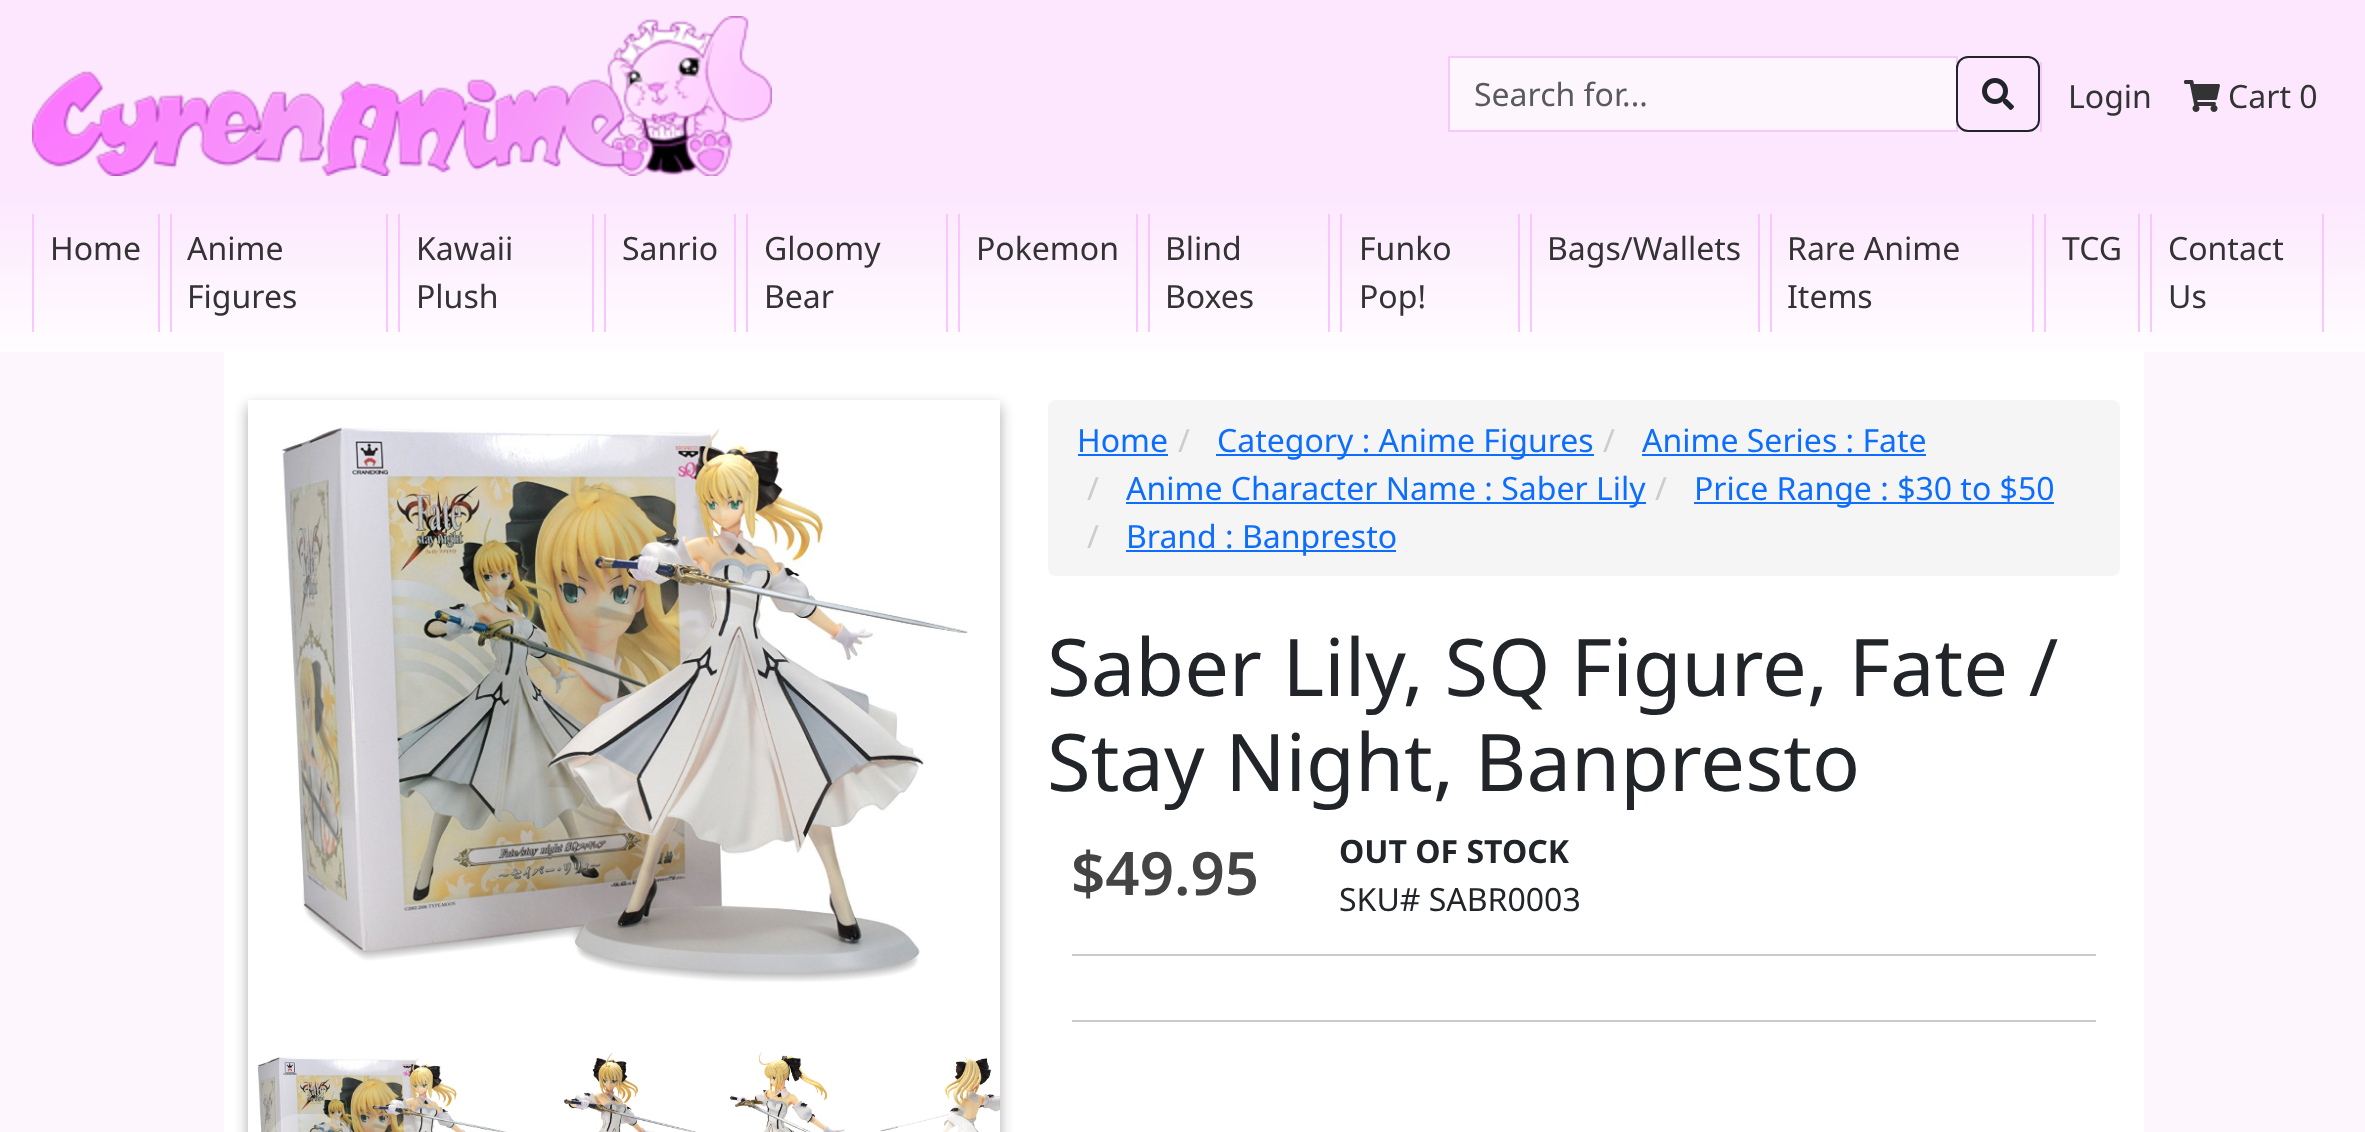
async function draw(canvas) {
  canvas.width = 2365
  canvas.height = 1132
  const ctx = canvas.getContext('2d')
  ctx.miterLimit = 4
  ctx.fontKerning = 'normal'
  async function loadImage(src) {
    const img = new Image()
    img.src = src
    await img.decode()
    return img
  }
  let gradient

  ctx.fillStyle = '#fdf7fd'
  ctx.fillRect(0, 0, 2365, 1132)
  ctx.fillStyle = '#fce7fe'
  ctx.fillRect(0, 0, 2365, 192)
  ctx.drawImage(await loadImage('image0.png'), 32, 16, 740, 160)
  ctx.fillStyle = '#f8c7fd'
  ctx.fillRect(2040, 62, 2, 70)
  ctx.fillStyle = '#fdf7fd'
  ctx.beginPath()
  ctx.rect(1449, 57, 508, 74)
  ctx.fill()
  ctx.strokeStyle = '#f8c7fd'
  ctx.lineWidth = 2
  ctx.stroke()
  ctx.font = '32px Noto Sans'
  ctx.fillStyle = '#585a5e'
  ctx.fillText('Search for...', 1474, 106)
  ctx.beginPath()
  ctx.roundRect(1957, 57, 82, 74, 11)
  ctx.strokeStyle = '#212529'
  ctx.stroke()
  ctx.drawImage(await loadImage('image1.png'), 1982, 78, 32, 32)
  ctx.fillStyle = '#333'
  ctx.fillText('Login', 2068, 108)
  ctx.drawImage(await loadImage('image2.png'), 2184, 80, 36, 32)
  ctx.fillText('Cart 0', 2228, 108)
  gradient = ctx.createLinearGradient(1183, 192, 1183, 352)
  gradient.addColorStop(0, '#fce7fe')
  gradient.addColorStop(1, '#fffdff')
  ctx.fillStyle = gradient
  ctx.fillRect(0, 192, 2365, 160)
  ctx.fillStyle = '#f8c7fd'
  ctx.fillRect(158, 214, 2, 118)
  ctx.fillRect(32, 214, 2, 118)
  ctx.fillStyle = '#333'
  ctx.fillText('Home', 50, 260)
  ctx.fillStyle = '#f8c7fd'
  ctx.fillRect(386, 214, 2, 118)
  ctx.fillRect(170, 214, 2, 118)
  ctx.fillStyle = '#333'
  ctx.fillText('Anime', 187, 260)
  ctx.fillText('Figures', 187, 308)
  ctx.fillStyle = '#f8c7fd'
  ctx.fillRect(592, 214, 2, 118)
  ctx.fillRect(398, 214, 2, 118)
  ctx.fillStyle = '#333'
  ctx.fillText('Kawaii', 416, 260)
  ctx.fillText('Plush', 416, 308)
  ctx.fillStyle = '#f8c7fd'
  ctx.fillRect(734, 214, 2, 118)
  ctx.fillRect(604, 214, 2, 118)
  ctx.fillStyle = '#333'
  ctx.fillText('Sanrio', 622, 260)
  ctx.fillStyle = '#f8c7fd'
  ctx.fillRect(946, 214, 2, 118)
  ctx.fillRect(746, 214, 2, 118)
  ctx.fillStyle = '#333'
  ctx.fillText('Gloomy', 764, 260)
  ctx.fillText('Bear', 764, 308)
  ctx.fillStyle = '#f8c7fd'
  ctx.fillRect(1136, 214, 2, 118)
  ctx.fillRect(958, 214, 2, 118)
  ctx.fillStyle = '#333'
  ctx.fillText('Pokemon', 976, 260)
  ctx.fillStyle = '#f8c7fd'
  ctx.fillRect(1328, 214, 2, 118)
  ctx.fillRect(1148, 214, 2, 118)
  ctx.fillStyle = '#333'
  ctx.fillText('Blind', 1165, 260)
  ctx.fillText('Boxes', 1165, 308)
  ctx.fillStyle = '#f8c7fd'
  ctx.fillRect(1518, 214, 2, 118)
  ctx.fillRect(1340, 214, 2, 118)
  ctx.fillStyle = '#333'
  ctx.fillText('Funko', 1359, 260)
  ctx.fillText('Pop!', 1359, 308)
  ctx.fillStyle = '#f8c7fd'
  ctx.fillRect(1758, 214, 2, 118)
  ctx.fillRect(1530, 214, 2, 118)
  ctx.fillStyle = '#333'
  ctx.fillText('Bags/Wallets', 1547, 260)
  ctx.fillStyle = '#f8c7fd'
  ctx.fillRect(2032, 214, 2, 118)
  ctx.fillRect(1770, 214, 2, 118)
  ctx.fillStyle = '#333'
  ctx.fillText('Rare Anime', 1787, 260)
  ctx.fillText('Items', 1787, 308)
  ctx.fillStyle = '#f8c7fd'
  ctx.fillRect(2138, 214, 2, 118)
  ctx.fillRect(2044, 214, 2, 118)
  ctx.fillStyle = '#333'
  ctx.fillText('TCG', 2062, 260)
  ctx.fillStyle = '#f8c7fd'
  ctx.fillRect(2322, 214, 2, 118)
  ctx.fillRect(2150, 214, 2, 118)
  ctx.fillStyle = '#333'
  ctx.fillText('Contact', 2168, 260)
  ctx.fillText('Us', 2168, 308)
  ctx.fillStyle = '#fff'
  ctx.fillRect(224, 352, 1920, 780)
  ctx.save()
  ctx.beginPath()
  ctx.moveTo(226, 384)
  ctx.lineTo(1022, 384)
  ctx.lineTo(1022, 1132)
  ctx.lineTo(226, 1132)
  ctx.closePath()
  ctx.moveTo(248, 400)
  ctx.lineTo(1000, 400)
  ctx.lineTo(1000, 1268)
  ctx.lineTo(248, 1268)
  ctx.closePath()
  ctx.clip('evenodd')
  ctx.fillStyle = '#a8a8a8'
  ctx.filter = 'blur(7px)'
  ctx.beginPath()
  ctx.rect(248, 406, 752, 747)
  ctx.fill()
  ctx.filter = 'none'
  ctx.restore()
  ctx.drawImage(await loadImage('image3.png'), 281, 427, 687, 555)
  ctx.drawImage(await loadImage('image4.png'), 257, 1057, 250, 75)
  ctx.drawImage(await loadImage('image5.png'), 563, 1053, 133, 79)
  ctx.drawImage(await loadImage('image6.png'), 730, 1051, 115, 81)
  ctx.drawImage(await loadImage('image7.png'), 880, 1057, 120, 75)
  ctx.fillStyle = '#ffffff38'
  ctx.beginPath()
  ctx.roundRect(268, 1114, 88, 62, 44)
  ctx.fill()
  ctx.fillStyle = '#ffffffbf'
  ctx.beginPath()
  ctx.roundRect(892, 1114, 88, 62, 44)
  ctx.fill()
  ctx.fillStyle = '#f5f5f5'
  ctx.beginPath()
  ctx.roundRect(1048, 400, 1072, 176, 8)
  ctx.fill()
  ctx.fillStyle = '#0d6efd'
  ctx.fillText('Home', 1077, 452)
  ctx.fillRect(1078, 454, 90, 2)
  ctx.fillStyle = '#ccc'
  ctx.fillText('/', 1178, 452)
  ctx.fillStyle = '#0d6efd'
  ctx.fillRect(1216, 454, 378, 2)
  ctx.fillText('Category : Anime Figures', 1217, 452)
  ctx.fillStyle = '#ccc'
  ctx.fillText('/', 1603, 452)
  ctx.fillStyle = '#0d6efd'
  ctx.fillText('Anime Series : Fate', 1642, 452)
  ctx.fillRect(1642, 454, 284, 2)
  ctx.fillStyle = '#ccc'
  ctx.fillText('/', 1087, 500)
  ctx.fillStyle = '#0d6efd'
  ctx.fillRect(1126, 502, 520, 2)
  ctx.fillText('Anime Character Name : Saber Lily', 1126, 500)
  ctx.fillStyle = '#ccc'
  ctx.fillText('/', 1655, 500)
  ctx.fillStyle = '#0d6efd'
  ctx.fillRect(1694, 502, 360, 2)
  ctx.fillText('Price Range : $30 to $50', 1694, 500)
  ctx.fillStyle = '#ccc'
  ctx.fillText('/', 1087, 548)
  ctx.fillStyle = '#0d6efd'
  ctx.fillRect(1126, 550, 270, 2)
  ctx.fillText('Brand : Banpresto', 1126, 548)
  ctx.font = '79.5px Noto Sans'
  ctx.fillStyle = '#212529'
  ctx.fillText('Saber Lily, SQ Figure, Fate /', 1047, 696)
  ctx.fillText('Stay Night, Banpresto', 1047, 791)
  ctx.font = '600 60px Noto Sans'
  ctx.fillStyle = '#444'
  ctx.fillText('$49.95', 1071, 895)
  ctx.font = 'bold 32px Noto Sans'
  ctx.fillStyle = '#212529'
  ctx.fillText('OUT OF STOCK', 1339, 863)
  ctx.font = '32px Noto Sans'
  ctx.fillText('SKU# SABR0003', 1339, 911)
  ctx.fillStyle = '#c8c9ca'
  ctx.fillRect(1072, 954, 1024, 2)
  ctx.fillRect(1072, 1020, 1024, 2)
}

draw(document.querySelector('canvas'))
